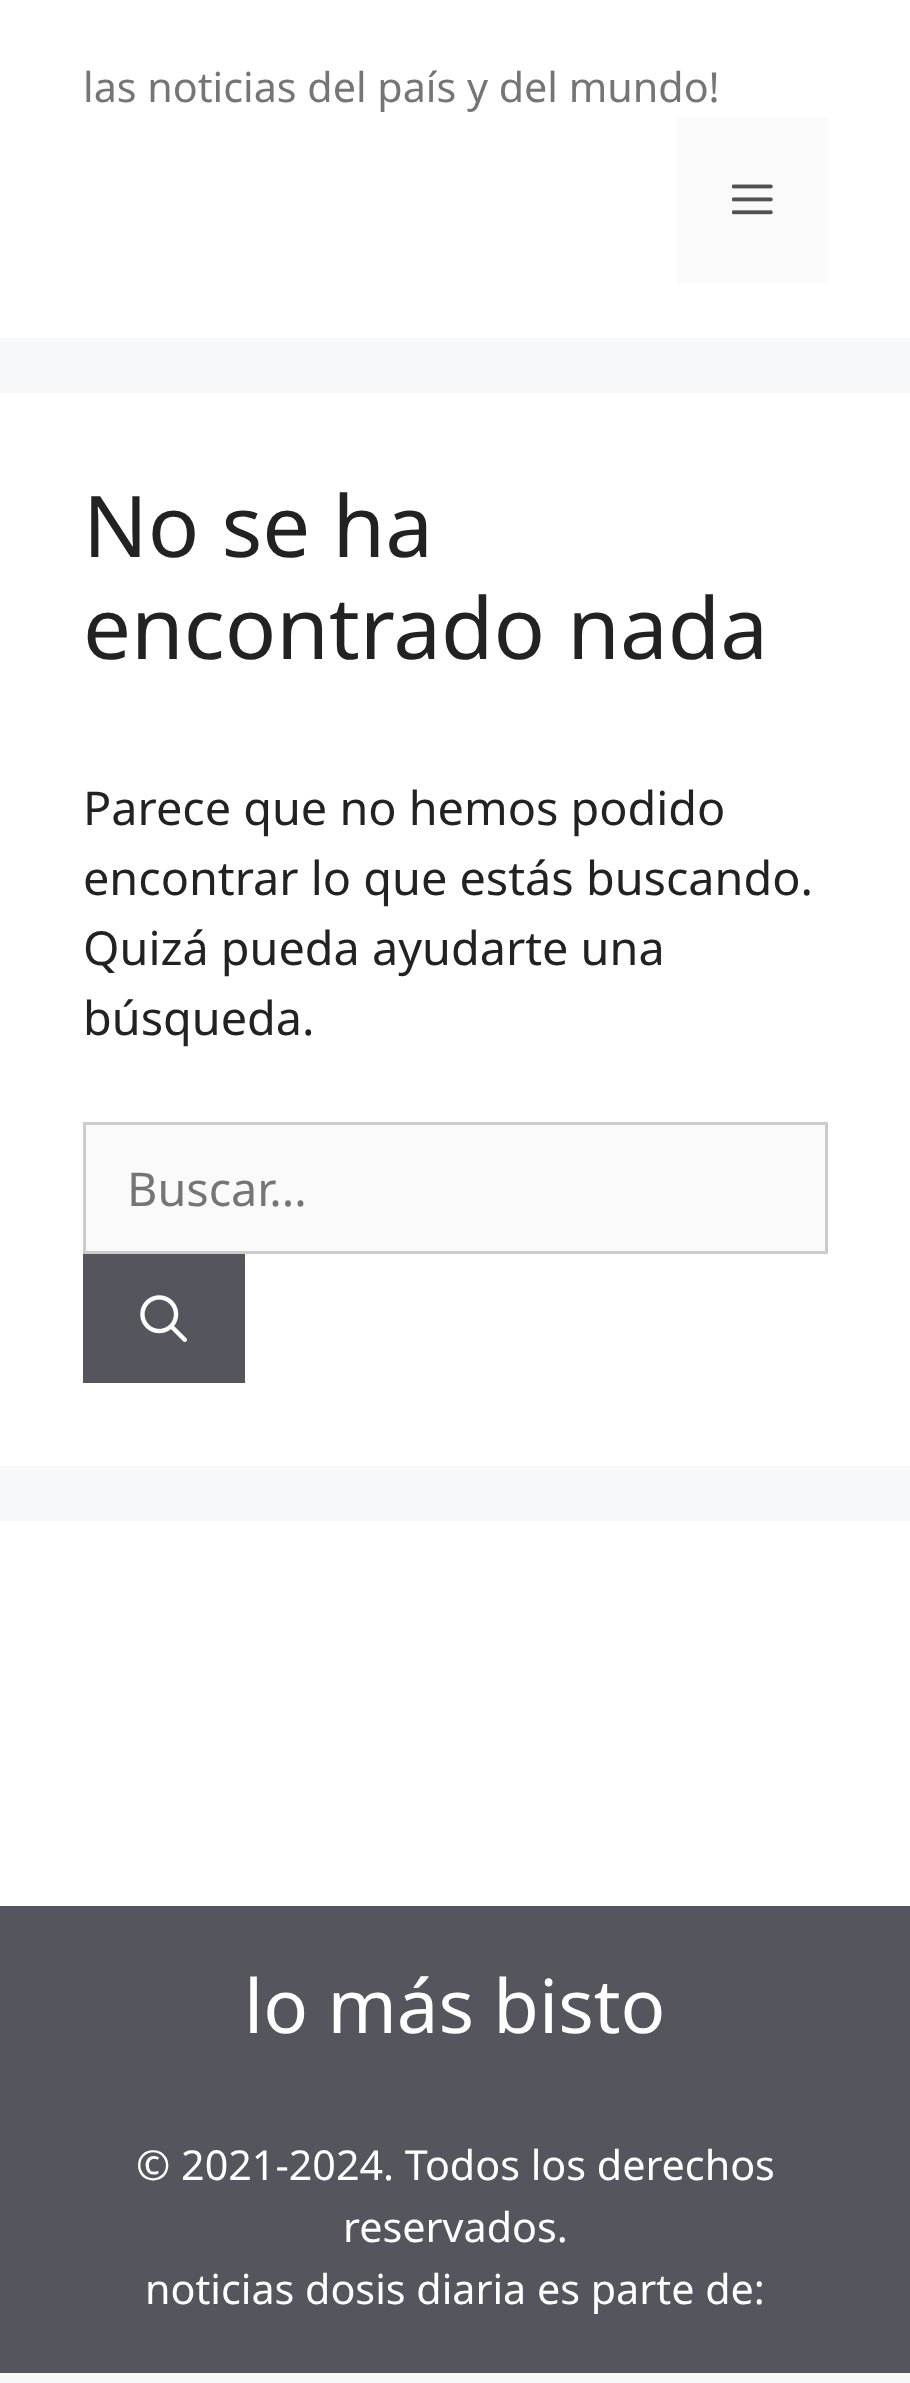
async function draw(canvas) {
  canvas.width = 910
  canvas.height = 2383
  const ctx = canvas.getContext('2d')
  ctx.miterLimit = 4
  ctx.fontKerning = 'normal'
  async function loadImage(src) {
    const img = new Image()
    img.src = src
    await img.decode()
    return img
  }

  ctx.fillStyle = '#f7f8f9'
  ctx.fillRect(0, 0, 910, 2383)
  ctx.fillStyle = '#fff'
  ctx.fillRect(0, 0, 910, 338)
  ctx.font = '41.25px Noto Sans'
  ctx.fillStyle = '#757575'
  ctx.fillText('las noticias del país y del mundo!', 83, 102)
  ctx.fillStyle = '#fafafa'
  ctx.fillRect(677, 118, 151, 165)
  ctx.drawImage(await loadImage('image0.png'), 732, 184, 41, 31)
  ctx.fillStyle = '#fff'
  ctx.fillRect(0, 393, 910, 1073)
  ctx.font = '85.25px Noto Sans'
  ctx.fillStyle = '#222'
  ctx.fillText('No se ha', 83, 557)
  ctx.fillText('encontrado nada', 83, 659)
  ctx.font = '46.75px Noto Sans'
  ctx.fillText('Parece que no hemos podido', 83, 825)
  ctx.fillText('encontrar lo que estás buscando.', 83, 895)
  ctx.fillText('Quizá pueda ayudarte una', 83, 965)
  ctx.fillText('búsqueda.', 83, 1035)
  ctx.fillStyle = '#fafafa'
  ctx.beginPath()
  ctx.rect(84.5, 1123.5, 742, 129)
  ctx.fill()
  ctx.strokeStyle = '#ccc'
  ctx.lineWidth = 3
  ctx.stroke()
  ctx.fillStyle = '#757575'
  ctx.fillText('Buscar...', 127, 1206)
  ctx.fillStyle = '#55555e'
  ctx.fillRect(83, 1254, 162, 129)
  ctx.drawImage(await loadImage('image1.png'), 140, 1295, 47, 47)
  ctx.fillStyle = '#fff'
  ctx.fillRect(0, 1521, 910, 385)
  ctx.fillStyle = '#55555e'
  ctx.fillRect(0, 1906, 910, 467)
  ctx.font = '74.25px Noto Sans'
  ctx.fillStyle = '#fff'
  ctx.fillText('lo más bisto', 244, 2033)
  ctx.font = '41.25px Noto Sans'
  ctx.fillText('© 2021-2024. Todos los derechos', 136, 2180)
  ctx.fillText('reservados.', 343, 2242)
  ctx.fillText('noticias dosis diaria es parte de:', 145, 2304)
}

draw(document.querySelector('canvas'))
